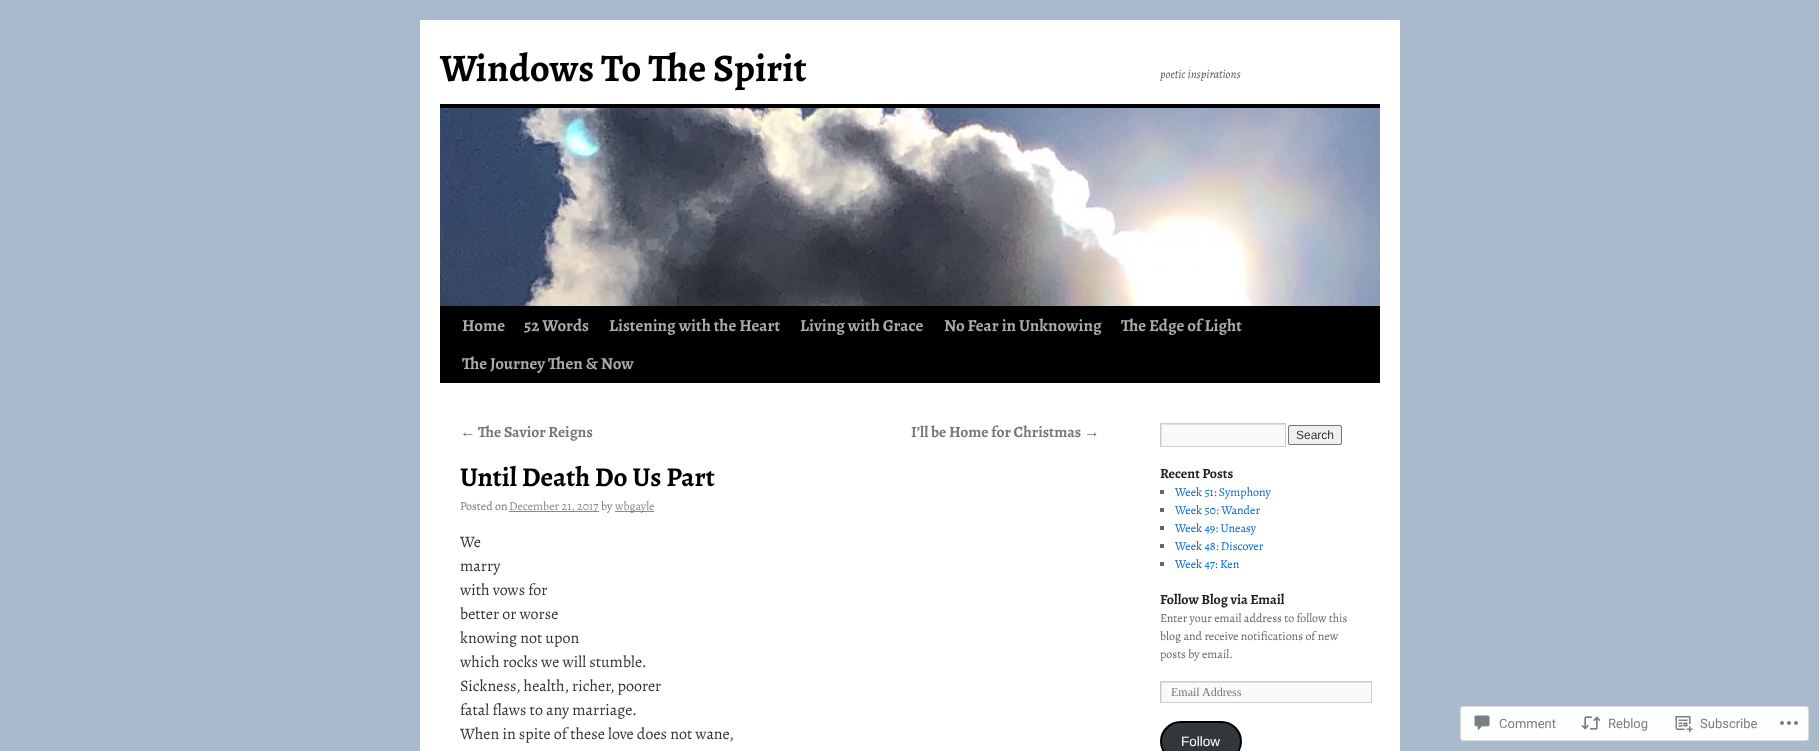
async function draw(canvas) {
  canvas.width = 1819
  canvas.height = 751
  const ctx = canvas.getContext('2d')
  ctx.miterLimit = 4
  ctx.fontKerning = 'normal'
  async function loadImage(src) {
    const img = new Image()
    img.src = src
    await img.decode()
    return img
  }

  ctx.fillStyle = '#a8bacb'
  ctx.fillRect(0, 0, 1819, 751)
  ctx.fillStyle = '#fff'
  ctx.fillRect(420, 20, 980, 731)
  ctx.font = 'bold 39px Alegreya'
  ctx.fillStyle = '#000'
  ctx.fillText('Windows To The Spirit', 440, 81)
  ctx.font = 'italic 12px Alegreya'
  ctx.fillStyle = '#595959'
  ctx.fillText('poetic inspirations', 1160, 78)
  ctx.fillStyle = '#000'
  ctx.fillRect(440, 104, 940, 4)
  ctx.fillRect(440, 306, 940, 77)
  ctx.drawImage(await loadImage('image0.png'), 440, 108, 940, 198)
  ctx.font = 'bold 16.9px Alegreya'
  ctx.fillStyle = '#aaa'
  ctx.fillText('Home', 462, 331)
  ctx.fillText('52 Words', 524, 331)
  ctx.fillText('Listening with the Heart', 609, 331)
  ctx.fillText('Living with Grace', 800, 331)
  ctx.fillText('No Fear in Unknowing', 944, 331)
  ctx.fillText('The Edge of Light', 1121, 331)
  ctx.fillText('The Journey Then & Now', 462, 369)
  ctx.font = 'bold 15.6px Liberation Serif'
  ctx.fillStyle = '#777'
  ctx.fillText('←', 460, 437)
  ctx.font = 'bold 15.6px Alegreya'
  ctx.fillText('The Savior Reigns', 478, 437)
  ctx.fillText('I’ll be Home for Christmas', 911, 437)
  ctx.font = 'bold 15.6px Liberation Serif'
  ctx.fillText('→', 1084, 437)
  ctx.font = 'bold 27.25px Alegreya'
  ctx.fillStyle = '#000'
  ctx.fillText('Until Death Do Us Part', 460, 486)
  ctx.font = '12px Alegreya'
  ctx.fillStyle = '#777'
  ctx.fillText('Posted on', 460, 510)
  ctx.fillStyle = '#888'
  ctx.fillRect(509, 511, 90, 1)
  ctx.fillText('December 21, 2017', 509, 510)
  ctx.fillStyle = '#777'
  ctx.fillText('by', 601, 510)
  ctx.fillStyle = '#888'
  ctx.fillRect(615, 511, 39, 1)
  ctx.fillText('wbgayle', 615, 510)
  ctx.font = '16px Alegreya'
  ctx.fillStyle = '#333'
  ctx.fillText('We', 460, 547)
  ctx.fillText('marry', 460, 571)
  ctx.fillText('with vows for', 460, 595)
  ctx.fillText('better or worse', 460, 619)
  ctx.fillText('knowing not upon', 460, 643)
  ctx.fillText('which rocks we will stumble.', 460, 667)
  ctx.fillText('Sickness, health, richer, poorer', 460, 691)
  ctx.fillText('fatal flaws to any marriage.', 460, 715)
  ctx.fillText('When in spite of these love does not wane,', 460, 739)
  ctx.fillStyle = '#f9f9f9'
  ctx.fillRect(1162, 425, 123, 21)
  ctx.save()
  ctx.beginPath()
  ctx.rect(1161, 424, 124, 22)
  ctx.clip()
  ctx.fillStyle = '#e0e0e0'
  ctx.beginPath()
  ctx.moveTo(1062, 325)
  ctx.lineTo(1384, 325)
  ctx.lineTo(1384, 545)
  ctx.lineTo(1062, 545)
  ctx.closePath()
  ctx.moveTo(1162, 425)
  ctx.lineTo(1286, 425)
  ctx.lineTo(1286, 447)
  ctx.lineTo(1162, 447)
  ctx.closePath()
  ctx.fill('evenodd')
  ctx.restore()
  ctx.strokeStyle = '#ccc'
  ctx.strokeRect(1160.5, 423.5, 125, 23)
  ctx.fillStyle = '#efefef'
  ctx.beginPath()
  ctx.roundRect(1288.5, 425.5, 53, 19, 1.5)
  ctx.fill()
  ctx.strokeStyle = '#767676'
  ctx.stroke()
  ctx.font = '12px Liberation Sans'
  ctx.fillStyle = '#333'
  ctx.fillText('Search', 1296, 439)
  ctx.font = 'bold 14px Alegreya'
  ctx.fillStyle = '#222'
  ctx.fillText('Recent Posts', 1160, 478)
  ctx.fillStyle = '#666'
  ctx.fillRect(1160, 490, 4, 4)
  ctx.font = '12px Alegreya'
  ctx.fillStyle = '#06c'
  ctx.fillText('Week 51: Symphony', 1175, 496)
  ctx.fillStyle = '#666'
  ctx.fillRect(1160, 508, 4, 4)
  ctx.fillStyle = '#06c'
  ctx.fillText('Week 50: Wander', 1175, 514)
  ctx.fillStyle = '#666'
  ctx.fillRect(1160, 526, 4, 4)
  ctx.fillStyle = '#06c'
  ctx.fillText('Week 49: Uneasy', 1175, 532)
  ctx.fillStyle = '#666'
  ctx.fillRect(1160, 544, 4, 4)
  ctx.fillStyle = '#06c'
  ctx.fillText('Week 48: Discover', 1175, 550)
  ctx.fillStyle = '#666'
  ctx.fillRect(1160, 562, 4, 4)
  ctx.fillStyle = '#06c'
  ctx.fillText('Week 47: Ken', 1175, 568)
  ctx.font = 'bold 14px Alegreya'
  ctx.fillStyle = '#222'
  ctx.fillText('Follow Blog via Email', 1160, 604)
  ctx.font = '12px Alegreya'
  ctx.fillStyle = '#666'
  ctx.fillText('Enter your email address to follow this', 1160, 622)
  ctx.fillText('blog and receive notifications of new', 1160, 640)
  ctx.fillText('posts by email.', 1160, 658)
  ctx.fillStyle = '#f9f9f9'
  ctx.fillRect(1162, 683, 209, 19)
  ctx.save()
  ctx.beginPath()
  ctx.rect(1161, 682, 210, 20)
  ctx.clip()
  ctx.fillStyle = '#e0e0e0'
  ctx.beginPath()
  ctx.moveTo(1062, 583)
  ctx.lineTo(1470, 583)
  ctx.lineTo(1470, 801)
  ctx.lineTo(1062, 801)
  ctx.closePath()
  ctx.moveTo(1162, 683)
  ctx.lineTo(1372, 683)
  ctx.lineTo(1372, 703)
  ctx.lineTo(1162, 703)
  ctx.closePath()
  ctx.fill('evenodd')
  ctx.restore()
  ctx.strokeStyle = '#ccc'
  ctx.strokeRect(1160.5, 681.5, 211, 21)
  ctx.font = '12px Liberation Serif'
  ctx.fillStyle = '#777'
  ctx.fillText('Email Address', 1171, 696)
  ctx.fillStyle = '#32373c'
  ctx.beginPath()
  ctx.roundRect(1161, 722, 80, 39, 19.5)
  ctx.fill()
  ctx.strokeStyle = '#000'
  ctx.lineWidth = 2
  ctx.stroke()
  ctx.font = '13.5px Liberation Sans'
  ctx.fillStyle = '#fff'
  ctx.fillText('Follow', 1181, 746)
  ctx.fillStyle = '#fdfefe'
  ctx.beginPath()
  ctx.roundRect(1460.5, 706.5, 348, 34, 2.5)
  ctx.fill()
  ctx.strokeStyle = '#dbdbde'
  ctx.lineWidth = 1
  ctx.stroke()
  ctx.drawImage(await loadImage('image1.png'), 1474, 715, 16, 16)
  ctx.font = '13px Roboto'
  ctx.fillStyle = '#797d83'
  ctx.fillText('Comment', 1499, 728)
  ctx.drawImage(await loadImage('image2.png'), 1581, 716, 20, 14)
  ctx.fillText('Reblog', 1608, 728)
  ctx.drawImage(await loadImage('image3.png'), 1675, 716, 18, 17)
  ctx.fillText('Subscribe', 1700, 728)
  ctx.drawImage(await loadImage('image4.png'), 1780, 721, 18, 4)
}

draw(document.querySelector('canvas'))
